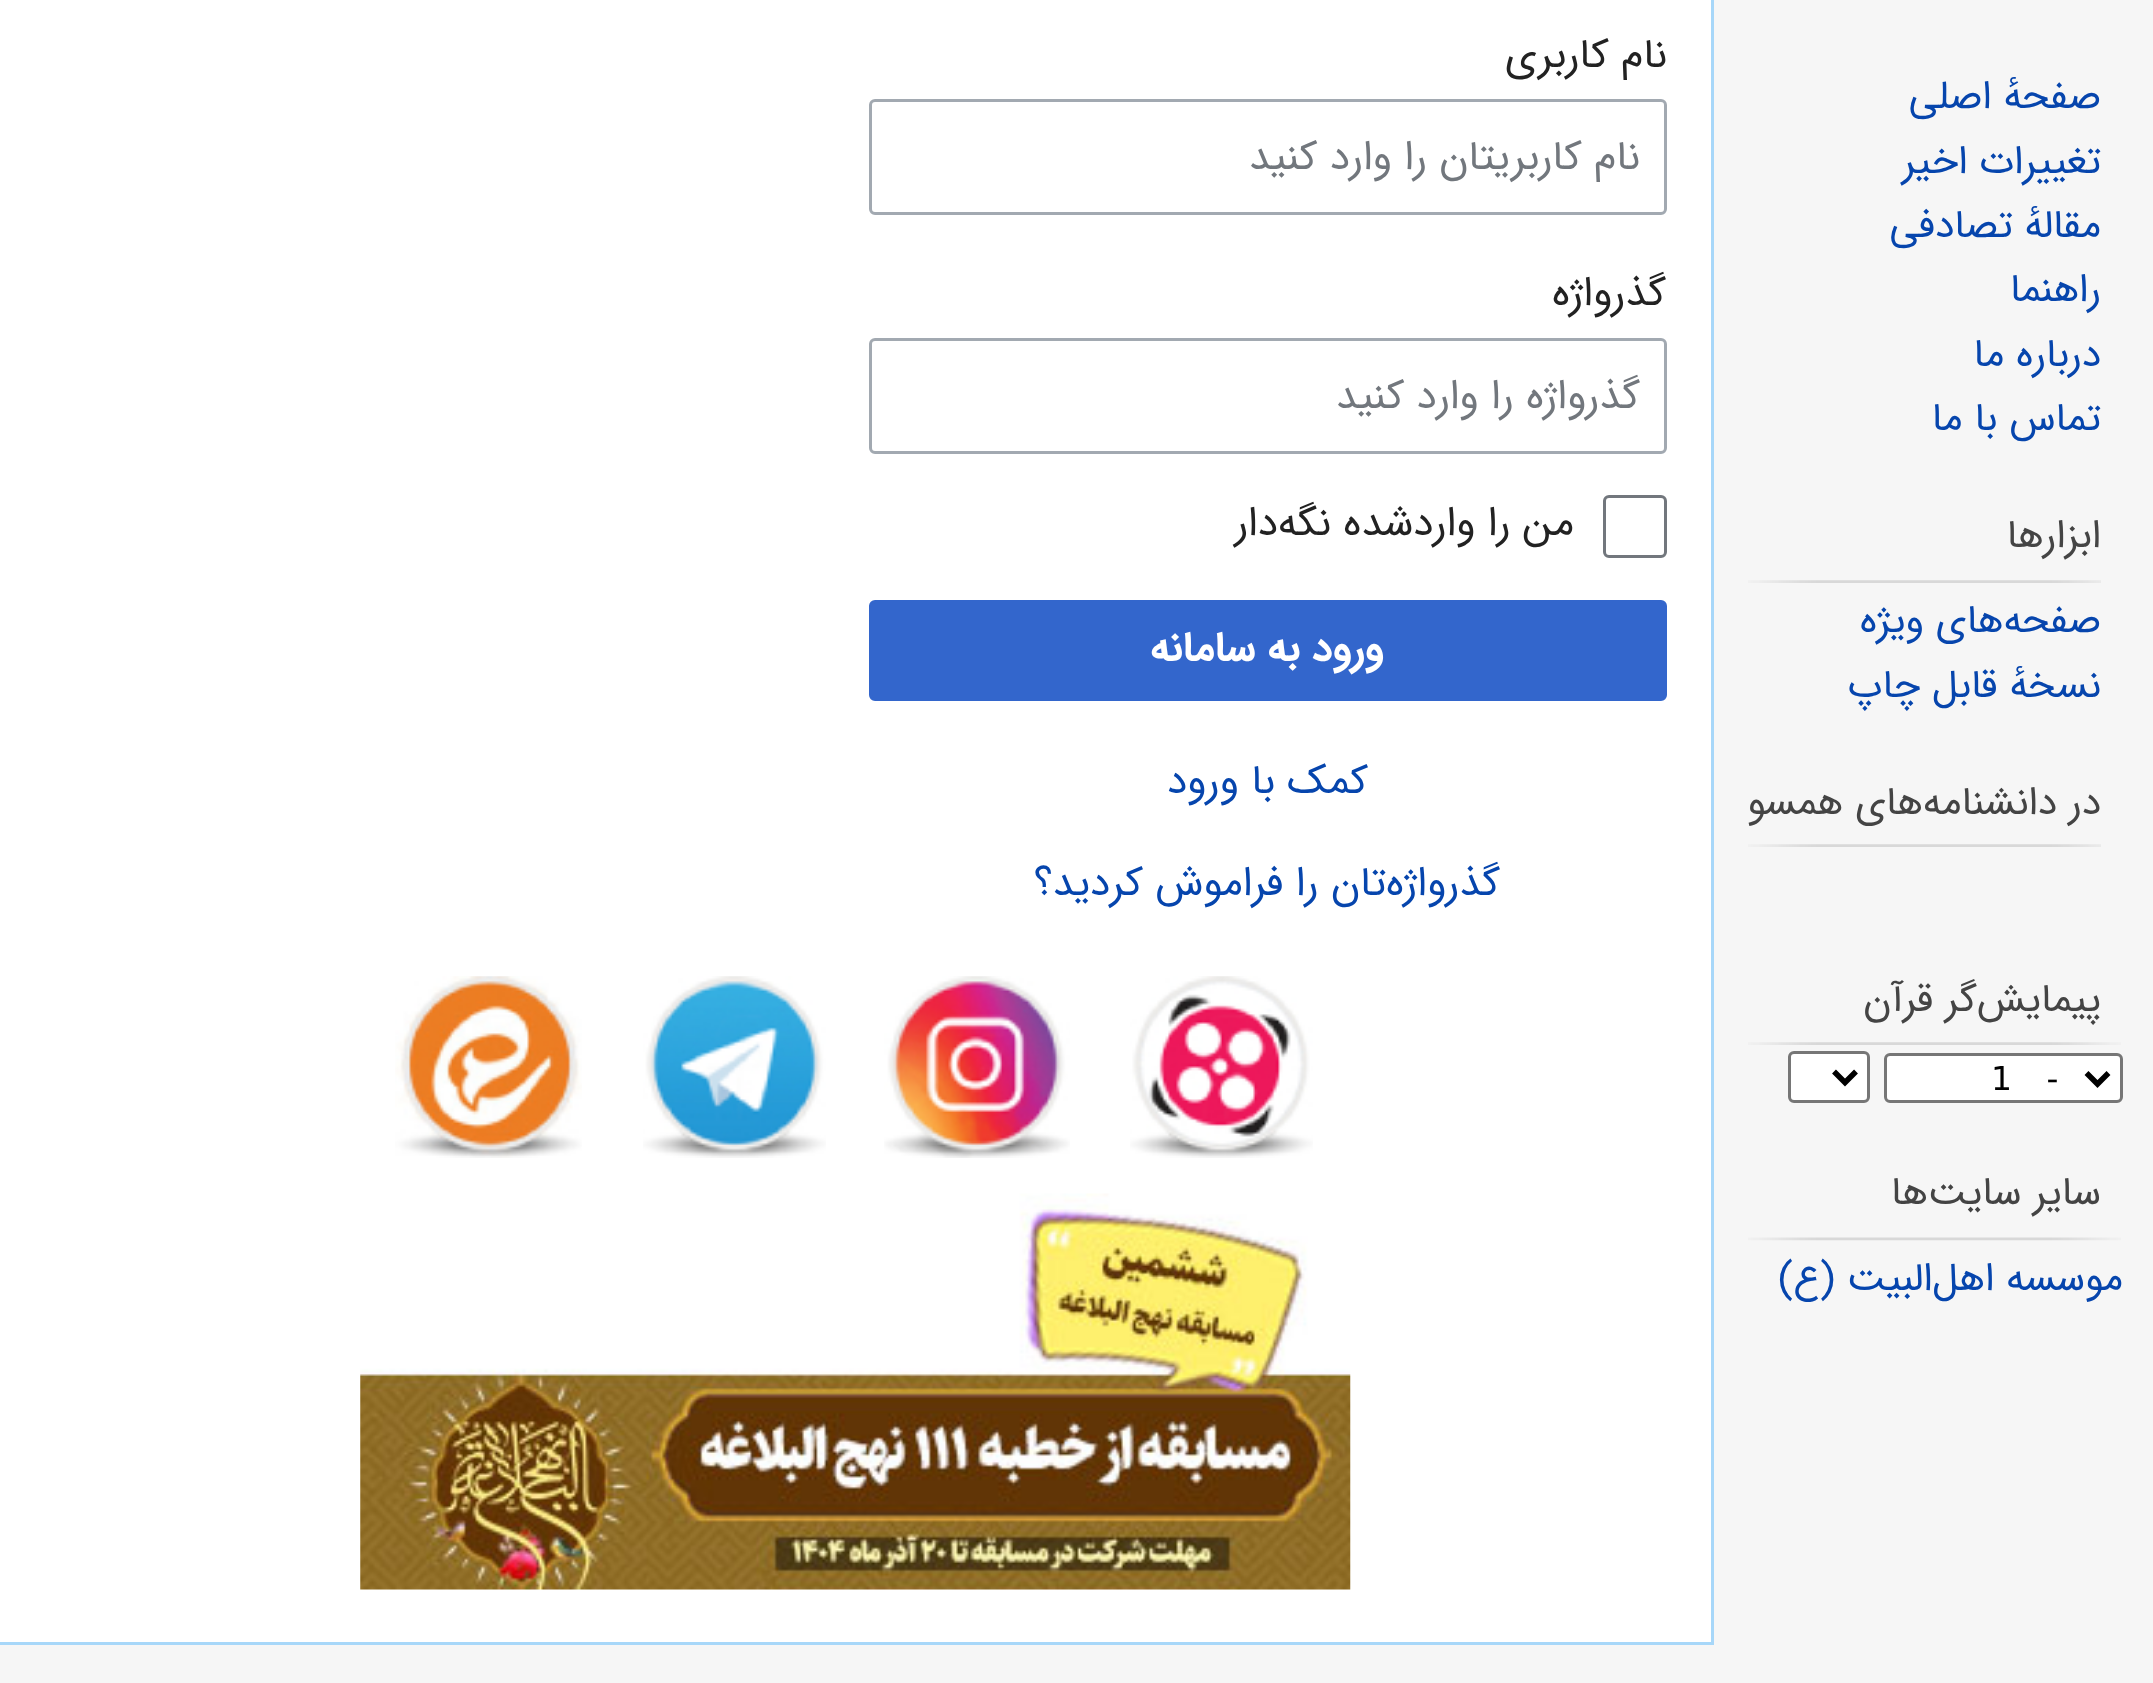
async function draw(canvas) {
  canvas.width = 2153
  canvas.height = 1683
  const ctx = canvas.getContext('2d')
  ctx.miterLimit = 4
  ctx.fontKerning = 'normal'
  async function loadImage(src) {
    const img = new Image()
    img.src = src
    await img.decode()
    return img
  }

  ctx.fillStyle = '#f6f6f6'
  ctx.fillRect(0, 0, 2153, 1683)
  ctx.direction = 'rtl'
  ctx.font = '39.5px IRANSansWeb'
  ctx.fillStyle = '#0645ad'
  ctx.fillText('صفحهٔ اصلی', 2101, 108)
  ctx.fillText('تغییرات اخیر', 2101, 173)
  ctx.fillText('مقالهٔ تصادفی', 2101, 237)
  ctx.fillText('راهنما', 2101, 301)
  ctx.fillText('درباره ما', 2101, 366)
  ctx.fillText('تماس با ما', 2101, 430)
  ctx.fillStyle = '#444'
  ctx.fillText('ابزارها', 2101, 547)
  ctx.drawImage(await loadImage('image0.png'), 1748, 580, 353, 3)
  ctx.fillStyle = '#0645ad'
  ctx.fillText('صفحه‌های ویژه', 2101, 632)
  ctx.fillText('نسخهٔ قابل چاپ', 2101, 697)
  ctx.fillStyle = '#444'
  ctx.fillText('در دانشنامه‌های همسو', 2101, 814)
  ctx.drawImage(await loadImage('image0.png'), 1748, 844, 353, 3)
  ctx.fillText('پیمایش‌گر قرآن', 2101, 1011)
  ctx.drawImage(await loadImage('image1.png'), 1748, 1042, 373, 3)
  ctx.fillStyle = '#fff'
  ctx.beginPath()
  ctx.roundRect(1885.5, 1054.5, 236, 47, 4.5)
  ctx.fill()
  ctx.strokeStyle = '#767676'
  ctx.lineWidth = 3
  ctx.stroke()
  ctx.beginPath()
  ctx.moveTo(2086.5, 1073)
  ctx.lineTo(2097.5, 1084)
  ctx.lineTo(2108.5, 1073)
  ctx.strokeStyle = '#000'
  ctx.lineWidth = 5.5
  ctx.stroke()
  ctx.wordSpacing = '24px'
  ctx.direction = 'ltr'
  ctx.font = '33px DejaVu Sans'
  ctx.fillStyle = '#000'
  ctx.fillText('1 -', 1991, 1090)
  ctx.fillStyle = '#fff'
  ctx.beginPath()
  ctx.roundRect(1789.5, 1052.5, 79, 49, 4.5)
  ctx.fill()
  ctx.strokeStyle = '#767676'
  ctx.lineWidth = 3
  ctx.stroke()
  ctx.beginPath()
  ctx.moveTo(1834, 1071.5)
  ctx.lineTo(1845, 1082.5)
  ctx.lineTo(1856, 1071.5)
  ctx.strokeStyle = '#000'
  ctx.lineWidth = 5.5
  ctx.stroke()
  ctx.wordSpacing = '0px'
  ctx.direction = 'rtl'
  ctx.font = '39.5px IRANSansWeb'
  ctx.fillStyle = '#444'
  ctx.fillText('سایر سایت‌ها', 2101, 1204)
  ctx.drawImage(await loadImage('image2.png'), 1748, 1237, 373, 4)
  ctx.fillStyle = '#0645ad'
  ctx.fillText('موسسه اهل‌البیت (ع)', 2123, 1290)
  ctx.fillStyle = '#fff'
  ctx.fillRect(0, 0, 1711, 1642)
  ctx.fillStyle = '#a7d7f9'
  ctx.fillRect(1711, 0, 3, 1645)
  ctx.fillRect(0, 1642, 1713, 3)
  ctx.font = '41px IRANSansWeb'
  ctx.fillStyle = '#222'
  ctx.fillText('نام کاربری', 1667, 67)
  ctx.beginPath()
  ctx.roundRect(870.5, 100.5, 795, 113, 4.5)
  ctx.strokeStyle = '#a2a9b1'
  ctx.lineWidth = 3
  ctx.stroke()
  ctx.fillStyle = '#72777d'
  ctx.fillText('نام کاربریتان را وارد کنید', 1640, 169)
  ctx.fillStyle = '#222'
  ctx.fillText('گذرواژه', 1666, 305)
  ctx.beginPath()
  ctx.roundRect(870.5, 339.5, 795, 113, 4.5)
  ctx.stroke()
  ctx.fillStyle = '#72777d'
  ctx.fillText('گذرواژه را وارد کنید', 1640, 408)
  ctx.beginPath()
  ctx.roundRect(1604.5, 496.5, 61, 60, 4.5)
  ctx.strokeStyle = '#72777d'
  ctx.stroke()
  ctx.fillStyle = '#222'
  ctx.fillText('من را واردشده نگه‌دار', 1574, 535)
  ctx.fillStyle = '#36c'
  ctx.beginPath()
  ctx.roundRect(870.5, 601.5, 795, 98, 4.5)
  ctx.fill()
  ctx.strokeStyle = '#36c'
  ctx.stroke()
  ctx.font = 'bold 41px IRANSansWeb'
  ctx.fillStyle = '#fff'
  ctx.fillText('ورود به سامانه', 1384, 660)
  ctx.font = '41px IRANSansWeb'
  ctx.fillStyle = '#0645ad'
  ctx.fillText('کمک با ورود', 1368, 793)
  ctx.fillText('گذرواژه‌تان را فراموش کردید؟', 1500, 895)
  ctx.drawImage(await loadImage('image3.png'), 1130, 976, 183, 182)
  ctx.drawImage(await loadImage('image4.png'), 884, 976, 186, 182)
  ctx.drawImage(await loadImage('image5.png'), 643, 976, 183, 182)
  ctx.drawImage(await loadImage('image6.png'), 395, 976, 187, 182)
  ctx.drawImage(await loadImage('image7.png'), 360, 1193, 991, 397)
}

draw(document.querySelector('canvas'))
